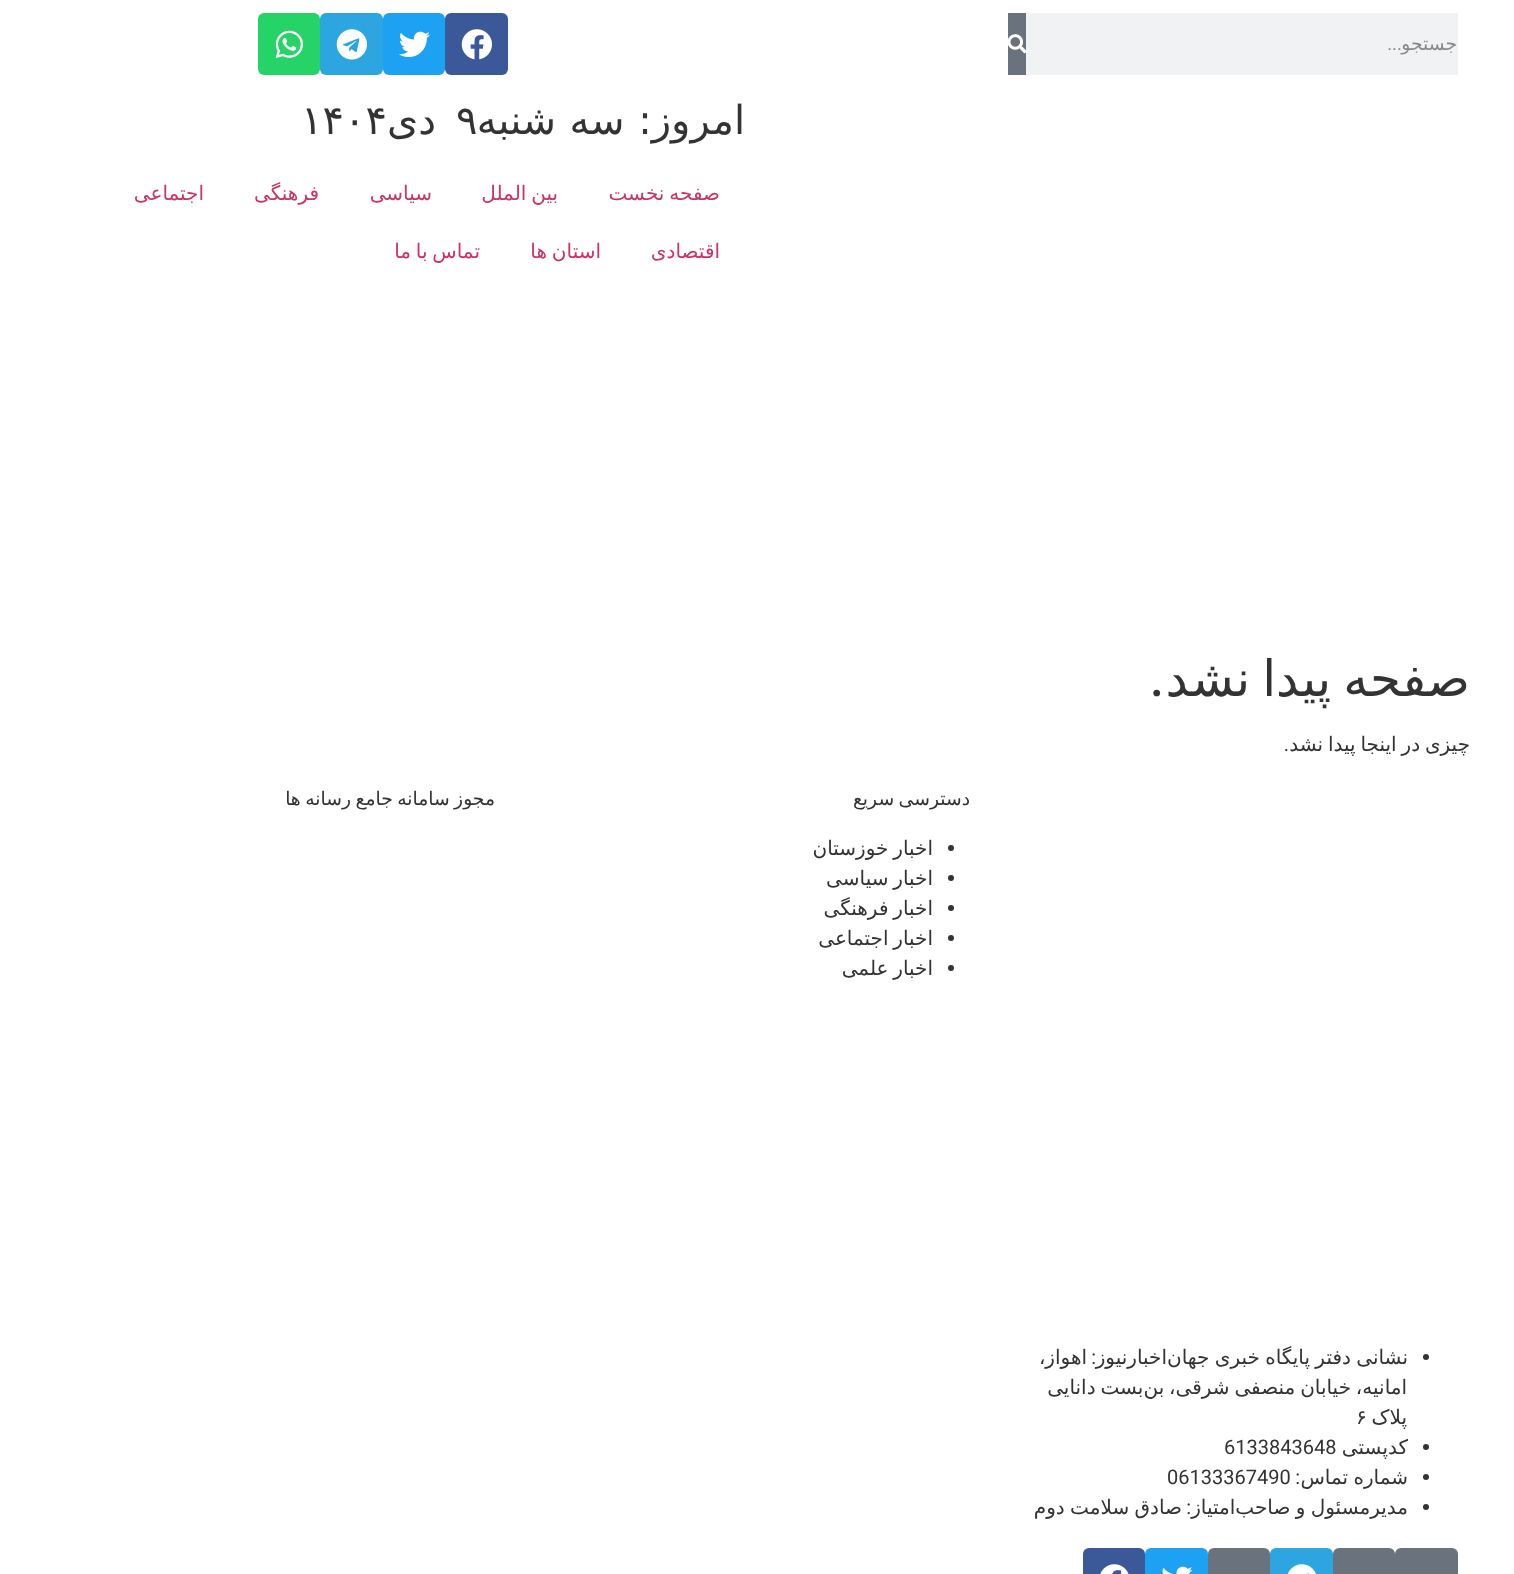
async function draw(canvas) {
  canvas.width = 1514
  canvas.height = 1574
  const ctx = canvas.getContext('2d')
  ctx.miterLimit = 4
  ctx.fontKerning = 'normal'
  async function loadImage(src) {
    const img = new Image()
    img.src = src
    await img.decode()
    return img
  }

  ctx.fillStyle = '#fff'
  ctx.fillRect(0, 0, 1514, 1574)
  ctx.fillStyle = '#f1f2f3'
  ctx.fillRect(1026, 13, 432, 62)
  ctx.direction = 'rtl'
  ctx.font = '18.75px Roboto'
  ctx.fillStyle = '#868a8e'
  ctx.fillText('...', 1402, 50)
  ctx.font = '18.75px DejaVu Sans'
  ctx.fillText('جستجو', 1457, 50)
  ctx.fillStyle = '#69727d'
  ctx.fillRect(1008, 13, 18, 62)
  ctx.drawImage(await loadImage('image0.png'), 1008, 34, 18, 20)
  ctx.fillStyle = '#3b5998'
  ctx.beginPath()
  ctx.roundRect(445, 13, 63, 62, 6)
  ctx.fill()
  ctx.drawImage(await loadImage('image1.png'), 461, 29, 31, 31)
  ctx.fillStyle = '#1da1f2'
  ctx.beginPath()
  ctx.roundRect(383, 13, 62, 62, 6)
  ctx.fill()
  ctx.drawImage(await loadImage('image2.png'), 399, 31, 31, 27)
  ctx.fillStyle = '#2ca5e0'
  ctx.beginPath()
  ctx.roundRect(320, 13, 63, 62, 6)
  ctx.fill()
  ctx.drawImage(await loadImage('image3.png'), 336, 29, 31, 31)
  ctx.fillStyle = '#25d366'
  ctx.beginPath()
  ctx.roundRect(258, 13, 62, 62, 6)
  ctx.fill()
  ctx.drawImage(await loadImage('image4.png'), 275, 30, 28, 28)
  ctx.wordSpacing = '1px'
  ctx.font = '40px DejaVu Sans'
  ctx.fillStyle = '#333'
  ctx.fillText('امروز: سه شنبه', 745, 134)
  ctx.wordSpacing = '0px'
  ctx.direction = 'ltr'
  ctx.fillText('۹', 456, 134)
  ctx.direction = 'rtl'
  ctx.fillText('دی', 436, 134)
  ctx.direction = 'ltr'
  ctx.fillText('۱۴۰۴', 301, 134)
  ctx.wordSpacing = '-1.5px'
  ctx.direction = 'rtl'
  ctx.font = '20px DejaVu Sans'
  ctx.fillStyle = '#c36'
  ctx.fillText('صفحه نخست', 720, 200)
  ctx.fillText('بین الملل', 558, 200)
  ctx.wordSpacing = '0px'
  ctx.fillText('سیاسی', 432, 200)
  ctx.fillText('فرهنگی', 319, 200)
  ctx.fillText('اجتماعی', 204, 200)
  ctx.fillText('اقتصادی', 720, 258)
  ctx.wordSpacing = '-1.5px'
  ctx.fillText('استان ها', 601, 258)
  ctx.fillText('تماس با ما', 480, 258)
  ctx.wordSpacing = '-4px'
  ctx.font = '50px DejaVu Sans'
  ctx.fillStyle = '#333'
  ctx.fillText('صفحه پیدا نشد', 1470, 696)
  ctx.wordSpacing = '0px'
  ctx.font = '500 50px Roboto'
  ctx.fillText('.', 1164, 696)
  ctx.wordSpacing = '-1.5px'
  ctx.font = '20px DejaVu Sans'
  ctx.fillText('چیزی در اینجا پیدا نشد', 1470, 751)
  ctx.wordSpacing = '0px'
  ctx.font = '20px Roboto'
  ctx.fillText('.', 1289, 751)
  ctx.wordSpacing = '-1.5px'
  ctx.font = '18.75px DejaVu Sans'
  ctx.fillText('دسترسی سریع', 970, 805)
  ctx.beginPath()
  ctx.arc(951, 848, 3, 0, 2 * Math.PI)
  ctx.fill()
  ctx.font = '20px DejaVu Sans'
  ctx.fillText('اخبار خوزستان', 933, 855)
  ctx.beginPath()
  ctx.arc(951, 878, 3, 0, 2 * Math.PI)
  ctx.fill()
  ctx.fillText('اخبار سیاسی', 933, 885)
  ctx.beginPath()
  ctx.arc(951, 908, 3, 0, 2 * Math.PI)
  ctx.fill()
  ctx.fillText('اخبار فرهنگی', 933, 915)
  ctx.beginPath()
  ctx.arc(951, 938, 3, 0, 2 * Math.PI)
  ctx.fill()
  ctx.fillText('اخبار اجتماعی', 933, 945)
  ctx.beginPath()
  ctx.arc(951, 968, 3, 0, 2 * Math.PI)
  ctx.fill()
  ctx.fillText('اخبار علمی', 933, 975)
  ctx.font = '18.75px DejaVu Sans'
  ctx.fillText('مجوز سامانه جامع رسانه ها', 495, 805)
  ctx.beginPath()
  ctx.arc(1426, 1357, 3, 0, 2 * Math.PI)
  ctx.fill()
  ctx.wordSpacing = '0px'
  ctx.font = '20px Roboto'
  ctx.fillText(':', 1096, 1364)
  ctx.wordSpacing = '-1px'
  ctx.font = '20px DejaVu Sans'
  ctx.fillText('نشانی دفتر پایگاه خبری جهان‌اخبارنیوز', 1408, 1364)
  ctx.wordSpacing = '0px'
  ctx.fillText('اهواز،', 1087, 1364)
  ctx.wordSpacing = '-1.5px'
  ctx.fillText('امانیه، خیابان منصفی شرقی، بن‌بست دانایی', 1407, 1394)
  ctx.wordSpacing = '0px'
  ctx.fillText('پلاک', 1407, 1424)
  ctx.direction = 'ltr'
  ctx.fillText('۶', 1356, 1424)
  ctx.beginPath()
  ctx.arc(1426, 1447, 3, 0, 2 * Math.PI)
  ctx.fill()
  ctx.direction = 'rtl'
  ctx.fillText('کدپستی', 1408, 1454)
  ctx.direction = 'ltr'
  ctx.font = '20px Roboto'
  ctx.fillText('6133843648', 1224, 1454)
  ctx.beginPath()
  ctx.arc(1426, 1477, 3, 0, 2 * Math.PI)
  ctx.fill()
  ctx.wordSpacing = '-1px'
  ctx.direction = 'rtl'
  ctx.font = '20px DejaVu Sans'
  ctx.fillText('شماره تماس', 1408, 1484)
  ctx.wordSpacing = '0px'
  ctx.font = '20px Roboto'
  ctx.fillText(':', 1300, 1484)
  ctx.direction = 'ltr'
  ctx.fillText('06133367490', 1167, 1484)
  ctx.beginPath()
  ctx.arc(1426, 1507, 3, 0, 2 * Math.PI)
  ctx.fill()
  ctx.wordSpacing = '-1px'
  ctx.direction = 'rtl'
  ctx.font = '20px DejaVu Sans'
  ctx.fillText('مدیرمسئول و صاحب‌امتیاز', 1408, 1514)
  ctx.wordSpacing = '0px'
  ctx.font = '20px Roboto'
  ctx.fillText(':', 1191, 1514)
  ctx.wordSpacing = '-1px'
  ctx.font = '20px DejaVu Sans'
  ctx.fillText('صادق سلامت دوم', 1182, 1514)
  ctx.fillStyle = '#69727d'
  ctx.beginPath()
  ctx.roundRect(1395, 1548, 63, 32, 6)
  ctx.fill()
  ctx.beginPath()
  ctx.roundRect(1333, 1548, 62, 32, 6)
  ctx.fill()
  ctx.fillStyle = '#2ca5e0'
  ctx.beginPath()
  ctx.roundRect(1270, 1548, 63, 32, 6)
  ctx.fill()
  ctx.drawImage(await loadImage('image5.png'), 1287, 1564, 29, 10)
  ctx.fillStyle = '#69727d'
  ctx.beginPath()
  ctx.roundRect(1208, 1548, 62, 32, 6)
  ctx.fill()
  ctx.fillStyle = '#1da1f2'
  ctx.beginPath()
  ctx.roundRect(1145, 1548, 63, 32, 6)
  ctx.fill()
  ctx.drawImage(await loadImage('image6.png'), 1162, 1566, 31, 8)
  ctx.fillStyle = '#3b5998'
  ctx.beginPath()
  ctx.roundRect(1083, 1548, 62, 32, 6)
  ctx.fill()
  ctx.drawImage(await loadImage('image7.png'), 1100, 1564, 29, 10)
}

draw(document.querySelector('canvas'))
